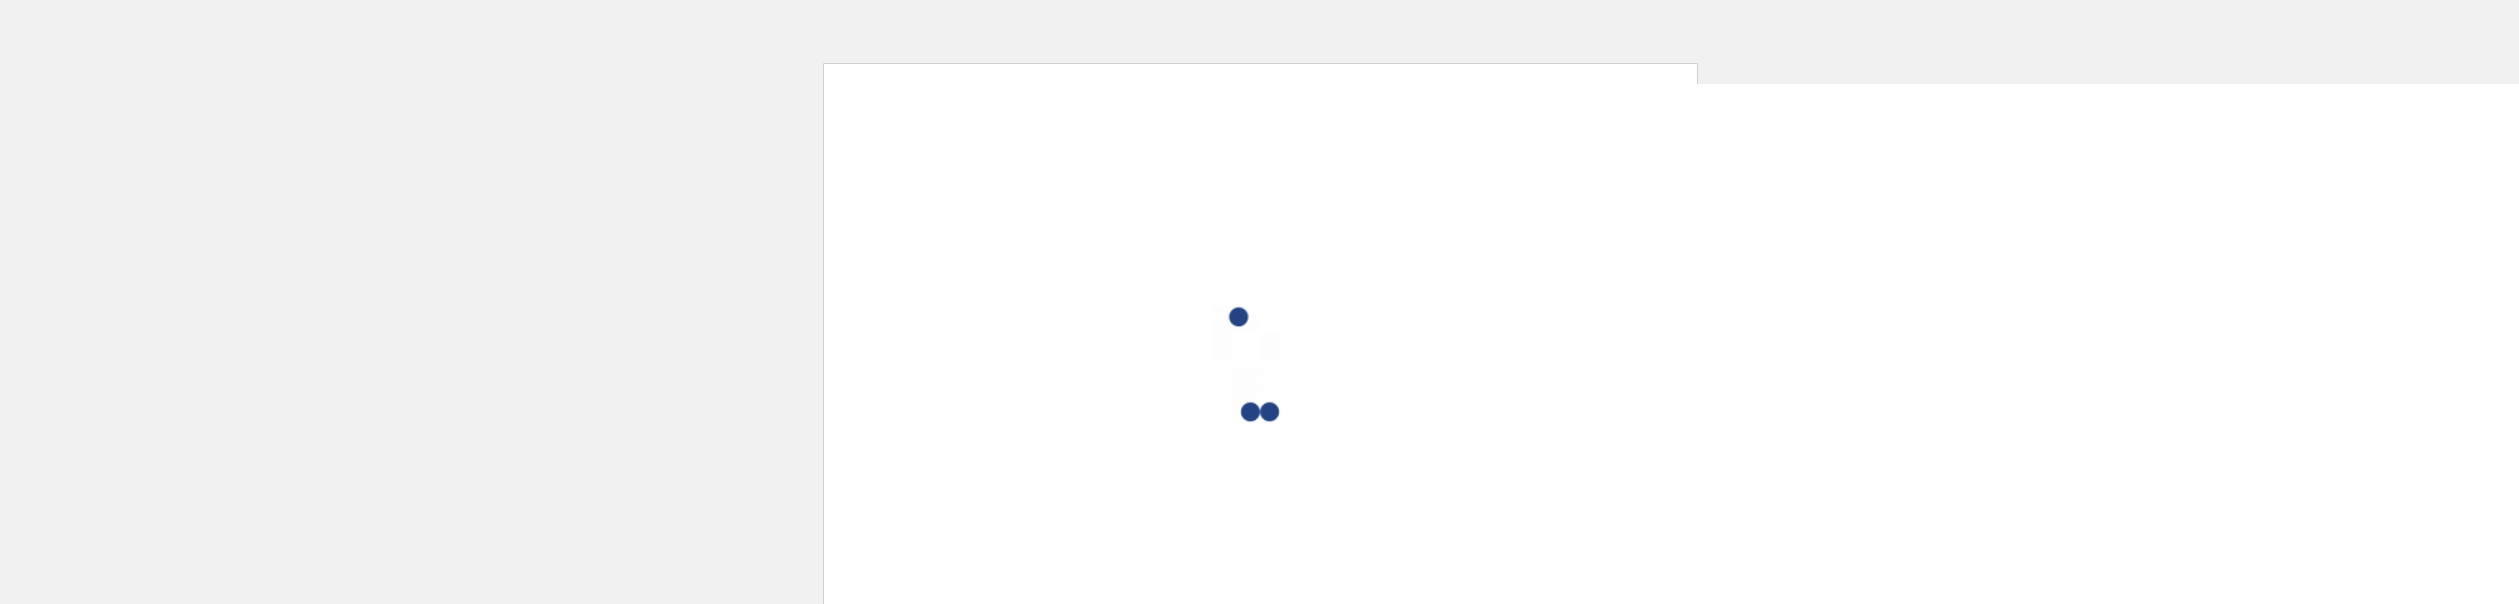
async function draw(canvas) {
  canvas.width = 2519
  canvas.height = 604
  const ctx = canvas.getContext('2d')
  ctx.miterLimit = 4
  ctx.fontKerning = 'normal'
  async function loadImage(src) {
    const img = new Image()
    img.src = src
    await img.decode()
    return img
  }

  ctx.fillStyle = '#f1f1f1'
  ctx.fillRect(0, 0, 2519, 604)
  ctx.fillStyle = '#fff'
  ctx.beginPath()
  ctx.rect(823.5, 63.5, 874, 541)
  ctx.fill()
  ctx.strokeStyle = '#ccd0d4'
  ctx.stroke()
  ctx.fillRect(1697, 84, 822, 520)
  ctx.drawImage(await loadImage('image0.png'), 1214, 306, 67, 117)
}

draw(document.querySelector('canvas'))
